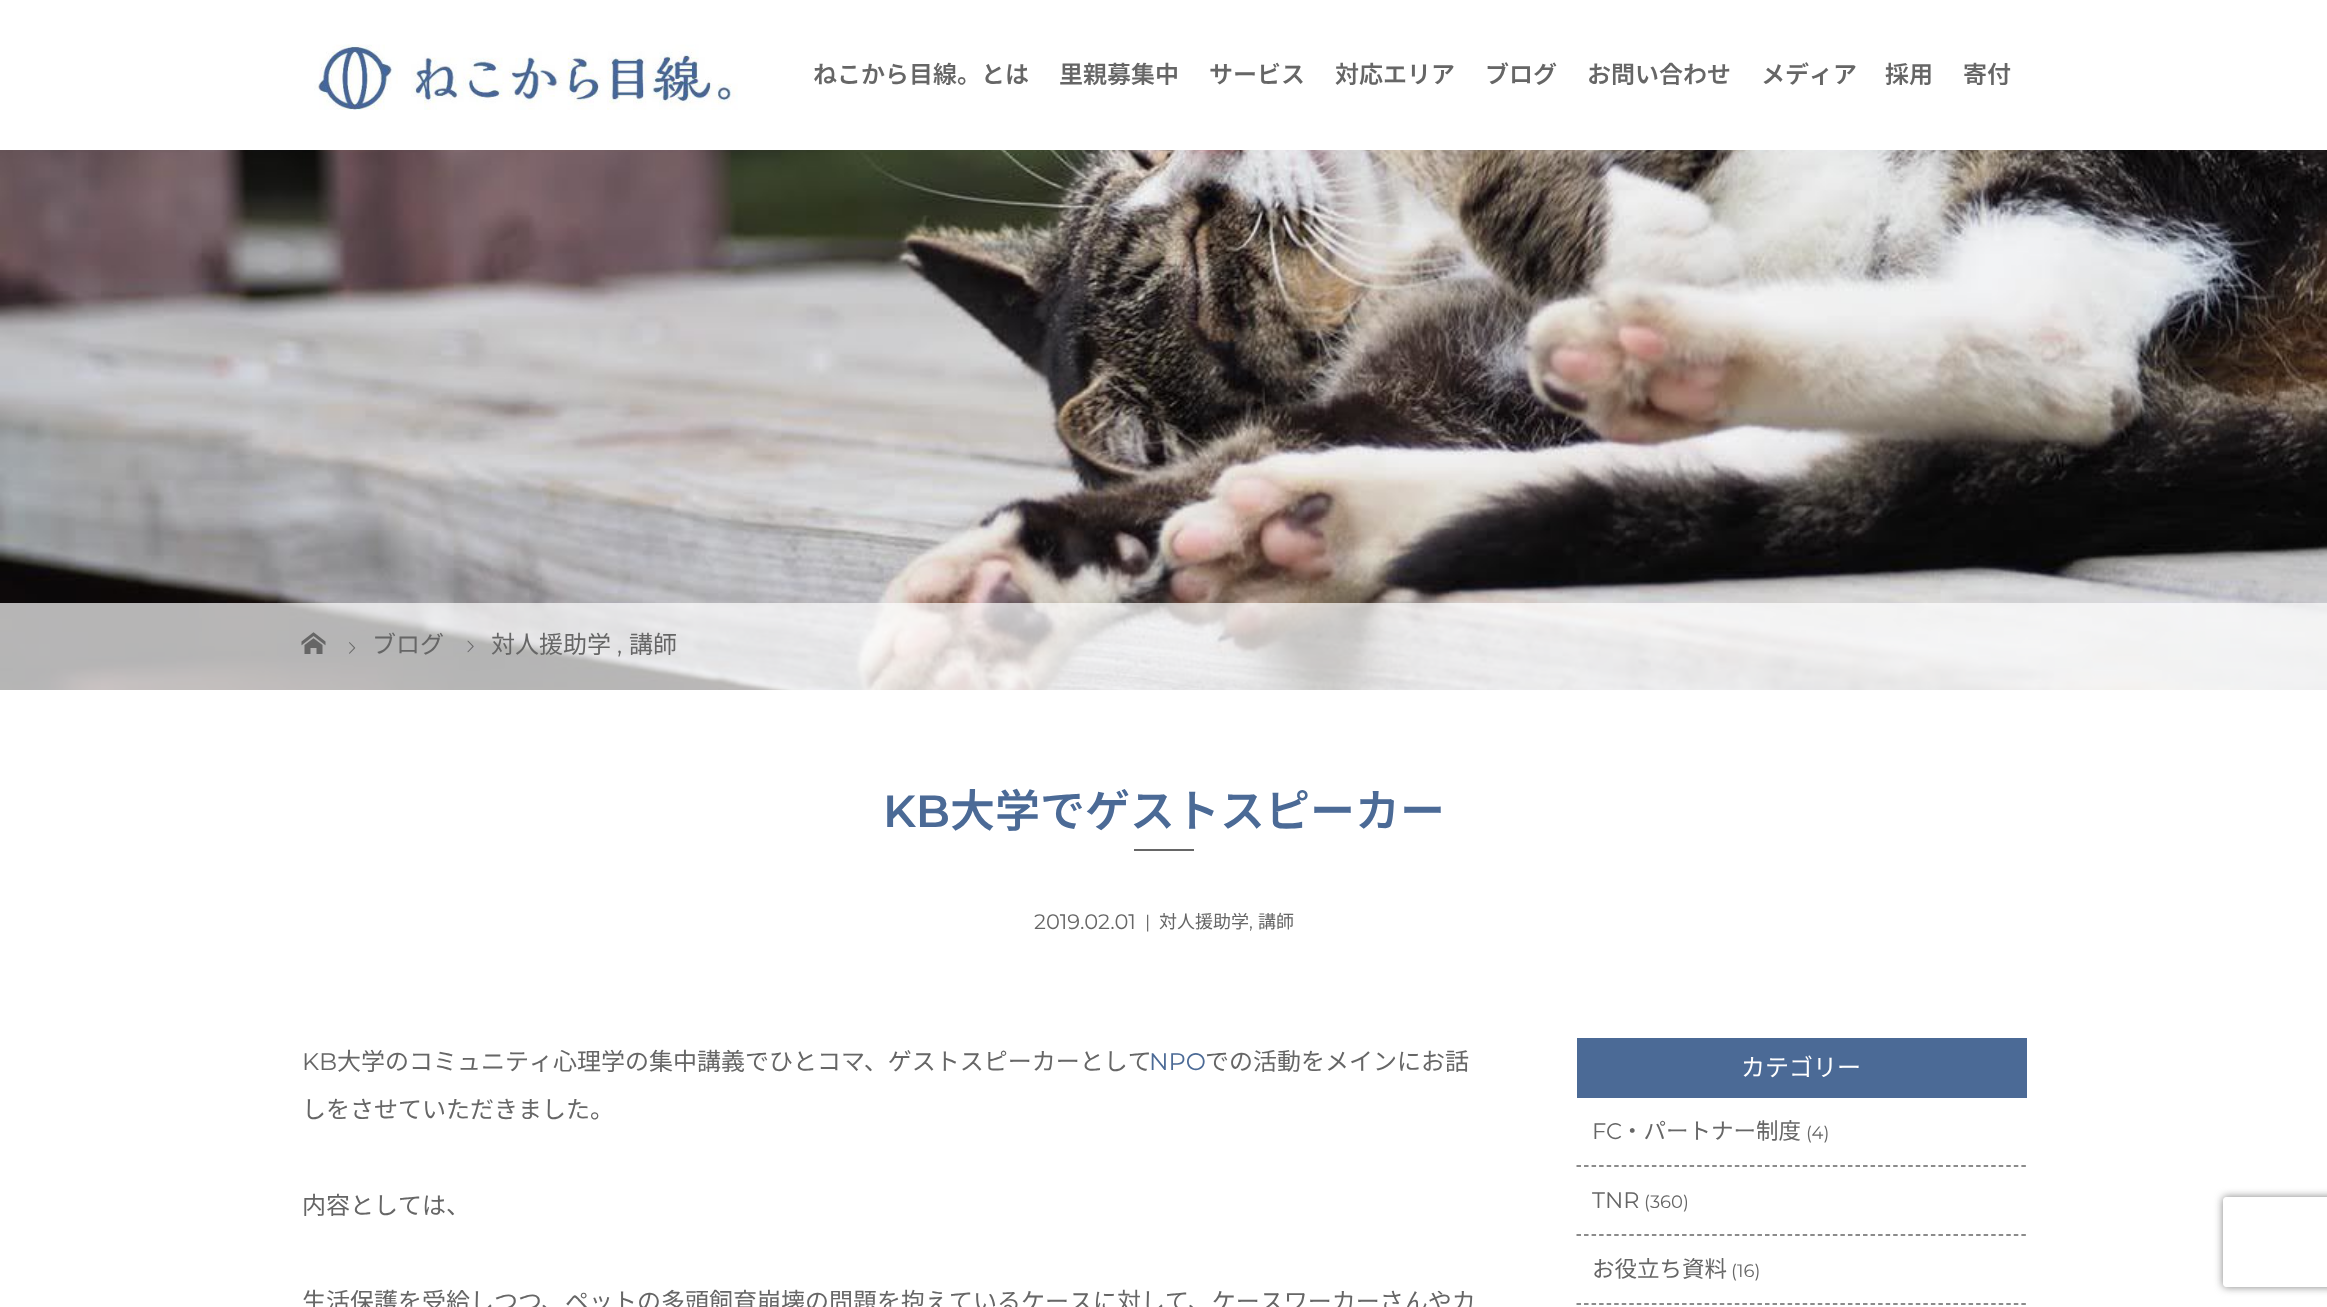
async function draw(canvas) {
  canvas.width = 2327
  canvas.height = 1307
  const ctx = canvas.getContext('2d')
  ctx.miterLimit = 4
  ctx.fontKerning = 'normal'
  async function loadImage(src) {
    const img = new Image()
    img.src = src
    await img.decode()
    return img
  }

  ctx.fillStyle = '#fff'
  ctx.fillRect(0, 0, 2327, 1307)
  ctx.drawImage(await loadImage('image0.png'), 314, 44, 424, 66)
  ctx.font = '600 24px Noto Sans JP'
  ctx.fillStyle = '#666'
  ctx.fillText('ねこから目線。とは', 813, 83)
  ctx.fillText('里親募集中', 1059, 83)
  ctx.fillText('サービス', 1209, 83)
  ctx.fillText('対応エリア', 1335, 83)
  ctx.fillText('ブログ', 1485, 83)
  ctx.fillText('お問い合わせ', 1587, 83)
  ctx.fillText('メディア', 1761, 83)
  ctx.fillText('採用', 1885, 83)
  ctx.fillText('寄付', 1963, 83)
  ctx.drawImage(await loadImage('image1.png'), 0, 150, 2327, 540)
  ctx.fillStyle = '#ffffffb3'
  ctx.fillRect(0, 603, 2327, 87)
  ctx.drawImage(await loadImage('image2.png'), 301, 632, 25, 22)
  ctx.drawImage(await loadImage('image3.png'), 349, 642, 7, 12)
  ctx.font = '24px Noto Sans JP'
  ctx.fillStyle = '#666'
  ctx.fillText('ブログ', 372, 653)
  ctx.drawImage(await loadImage('image4.png'), 467, 640, 7, 13)
  ctx.fillText('対人援助学', 491, 653)
  ctx.font = '24px Montserrat'
  ctx.fillText(',', 617, 653)
  ctx.font = '24px Noto Sans JP'
  ctx.fillText('講師', 629, 653)
  ctx.font = '600 45px Montserrat'
  ctx.fillStyle = '#4b6a96'
  ctx.fillText('KB', 883, 827)
  ctx.font = '600 45px Noto Sans JP'
  ctx.fillText('大学でゲストスピーカー', 950, 827)
  ctx.fillStyle = '#666'
  ctx.fillRect(1134, 849, 60, 2)
  ctx.font = '21px Montserrat'
  ctx.fillText('2019.02.01', 1034, 929)
  ctx.font = '18px Montserrat'
  ctx.fillText('|', 1145, 928)
  ctx.font = '18px Noto Sans JP'
  ctx.fillText('対人援助学', 1159, 928)
  ctx.font = '18px Montserrat'
  ctx.fillText(',', 1249, 928)
  ctx.font = '18px Noto Sans JP'
  ctx.fillText('講師', 1258, 928)
  ctx.font = '24px Montserrat'
  ctx.fillText('KB', 302, 1070)
  ctx.font = '24px Noto Sans JP'
  ctx.fillText('大学のコミュニティ心理学の集中講義でひとコマ、ゲストスピーカーとして', 337, 1070)
  ctx.font = '24px Montserrat'
  ctx.fillStyle = '#4b6a96'
  ctx.fillText('NPO', 1149, 1070)
  ctx.font = '24px Noto Sans JP'
  ctx.fillStyle = '#666'
  ctx.fillText('での活動をメインにお話', 1205, 1070)
  ctx.fillText('しをさせていただきました。', 302, 1118)
  ctx.fillText('内容としては、', 302, 1214)
  ctx.fillText('生活保護を受給しつつ、ペットの多頭飼育崩壊の問題を抱えているケースに対して、ケースワーカーさんやカ', 302, 1310)
  ctx.fillStyle = '#4b6a96'
  ctx.fillRect(1577, 1038, 450, 60)
  ctx.fillStyle = '#fff'
  ctx.fillText('カテゴリー', 1741, 1076)
  ctx.beginPath()
  ctx.moveTo(1576.5, 1166)
  ctx.lineTo(2026.5, 1166)
  ctx.strokeStyle = '#666'
  ctx.lineWidth = 1.5
  ctx.setLineDash([4.5, 3.04])
  ctx.stroke()
  ctx.font = '22.5px Montserrat'
  ctx.fillStyle = '#666'
  ctx.fillText('FC', 1592, 1139)
  ctx.font = '22.5px Noto Sans JP'
  ctx.fillText('・パートナー制度', 1621, 1139)
  ctx.font = '18px Montserrat'
  ctx.fillText('(4)', 1806, 1139)
  ctx.beginPath()
  ctx.moveTo(1576.5, 1235)
  ctx.lineTo(2026.5, 1235)
  ctx.stroke()
  ctx.font = '22.5px Montserrat'
  ctx.fillText('TNR', 1592, 1208)
  ctx.font = '18px Montserrat'
  ctx.fillText('(360)', 1644, 1208)
  ctx.beginPath()
  ctx.moveTo(1576.5, 1304)
  ctx.lineTo(2026.5, 1304)
  ctx.stroke()
  ctx.font = '22.5px Noto Sans JP'
  ctx.fillText('お役立ち資料', 1592, 1277)
  ctx.font = '18px Montserrat'
  ctx.fillText('(16)', 1731, 1277)
  ctx.save()
  ctx.beginPath()
  ctx.moveTo(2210, 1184)
  ctx.lineTo(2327, 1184)
  ctx.lineTo(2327, 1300)
  ctx.lineTo(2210, 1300)
  ctx.closePath()
  ctx.moveTo(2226, 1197)
  ctx.lineTo(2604, 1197)
  ctx.bezierCurveTo(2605.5, 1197, 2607, 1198.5, 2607, 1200)
  ctx.lineTo(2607, 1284)
  ctx.bezierCurveTo(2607, 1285.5, 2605.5, 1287, 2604, 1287)
  ctx.lineTo(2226, 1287)
  ctx.bezierCurveTo(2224.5, 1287, 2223, 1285.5, 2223, 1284)
  ctx.lineTo(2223, 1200)
  ctx.bezierCurveTo(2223, 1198.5, 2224.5, 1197, 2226, 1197)
  ctx.closePath()
  ctx.clip('evenodd')
  ctx.fillStyle = '#808080'
  ctx.filter = 'blur(4px)'
  ctx.beginPath()
  ctx.roundRect(2223, 1197, 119, 90, 3)
  ctx.fill()
  ctx.filter = 'none'
  ctx.restore()
}

draw(document.querySelector('canvas'))
